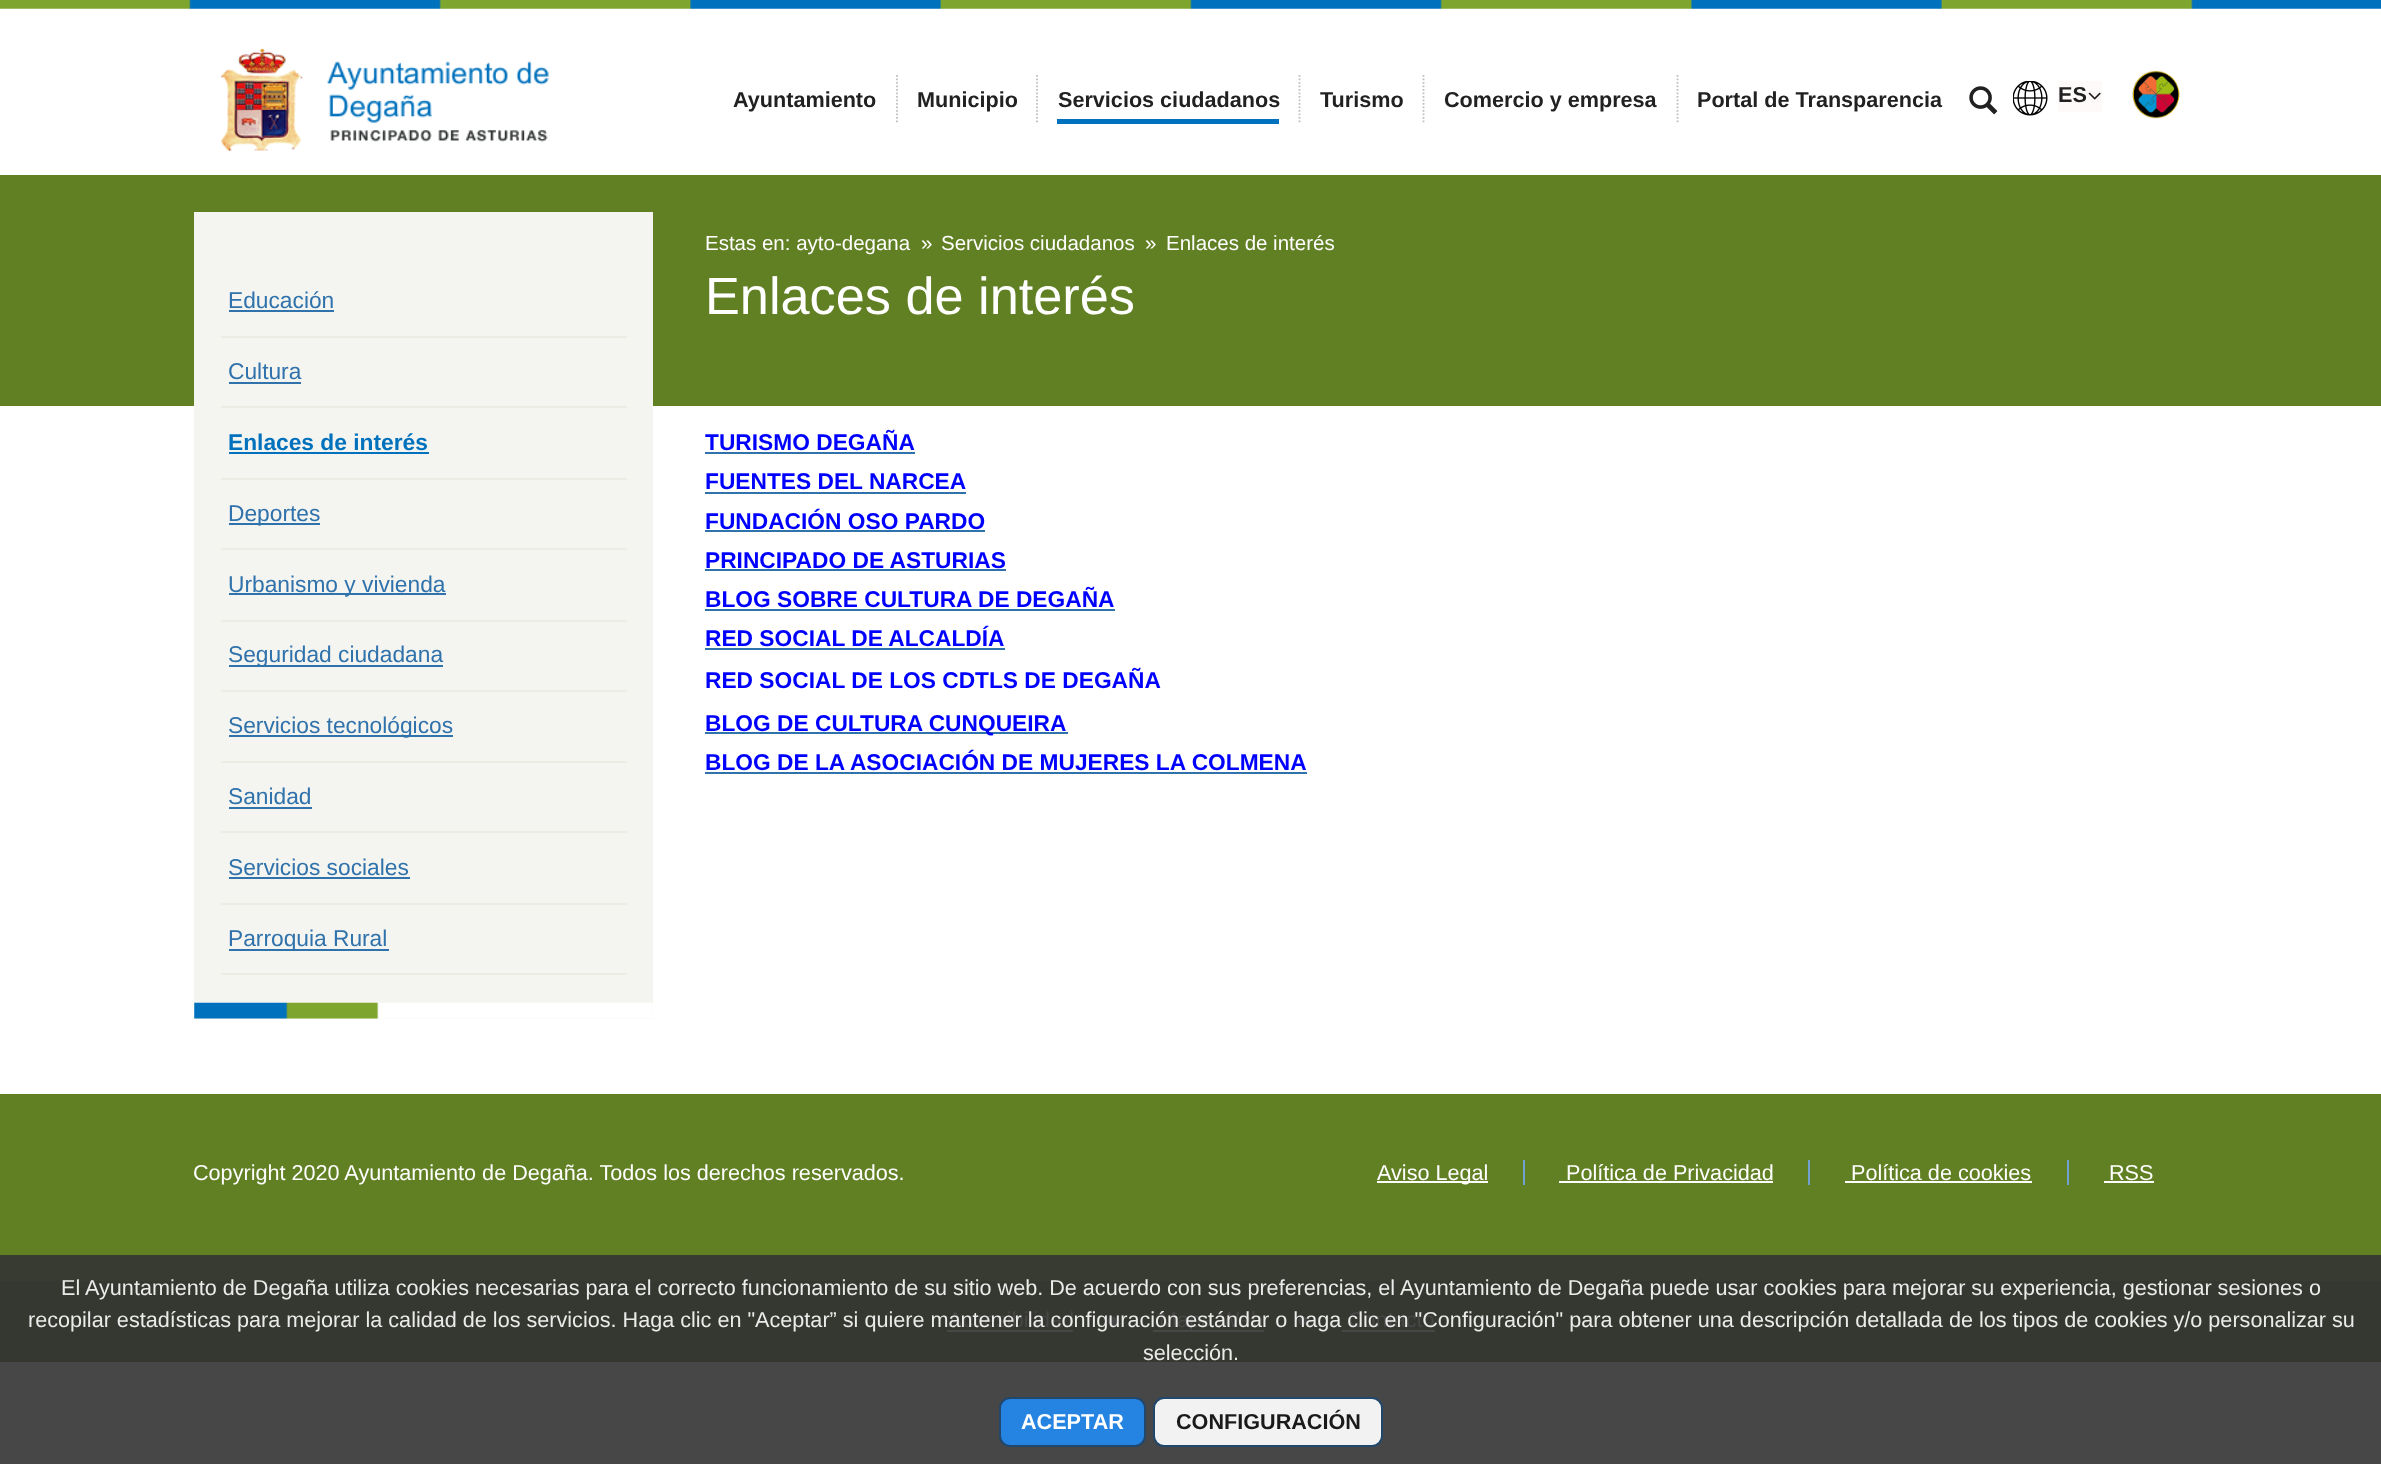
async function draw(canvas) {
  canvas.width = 2381
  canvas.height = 1464
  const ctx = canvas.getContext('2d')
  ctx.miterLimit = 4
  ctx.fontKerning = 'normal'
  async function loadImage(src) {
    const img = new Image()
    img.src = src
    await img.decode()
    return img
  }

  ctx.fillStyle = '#fff'
  ctx.fillRect(0, 0, 2381, 1464)
  ctx.fillStyle = '#474747'
  ctx.fillRect(0, 1362, 2381, 102)
  ctx.drawImage(await loadImage('image0.png'), 0, 0, 2381, 9)
  ctx.drawImage(await loadImage('image1.png'), 221, 49, 328, 102)
  ctx.beginPath()
  ctx.moveTo(897, 75)
  ctx.lineTo(897, 124)
  ctx.strokeStyle = '#bfbfc1'
  ctx.lineWidth = 1.8
  ctx.setLineDash([1.75, 1.75])
  ctx.stroke()
  ctx.font = 'bold 21.61px Liberation Sans'
  ctx.fillStyle = '#212121'
  ctx.fillText('Ayuntamiento', 733, 107)
  ctx.beginPath()
  ctx.moveTo(1037, 75)
  ctx.lineTo(1037, 124)
  ctx.stroke()
  ctx.fillText('Municipio', 917, 107)
  ctx.beginPath()
  ctx.moveTo(1299.5, 75)
  ctx.lineTo(1299.5, 124)
  ctx.stroke()
  ctx.fillText('Servicios ciudadanos', 1058, 107)
  ctx.fillStyle = '#0071bc'
  ctx.fillRect(1057, 119, 222, 5)
  ctx.beginPath()
  ctx.moveTo(1423.5, 75)
  ctx.lineTo(1423.5, 124)
  ctx.stroke()
  ctx.fillStyle = '#212121'
  ctx.fillText('Turismo', 1320, 107)
  ctx.beginPath()
  ctx.moveTo(1677.5, 75)
  ctx.lineTo(1677.5, 124)
  ctx.stroke()
  ctx.fillText('Comercio y empresa', 1444, 107)
  ctx.fillText('Portal de Transparencia', 1697, 107)
  ctx.drawImage(await loadImage('image2.png'), 1969, 86, 29, 29)
  ctx.drawImage(await loadImage('image3.png'), 2013, 81, 35, 35)
  ctx.fillStyle = '#fffafa'
  ctx.fillRect(2058, 81, 44, 31)
  ctx.fillStyle = '#212121'
  ctx.fillText('ES', 2058, 102)
  ctx.drawImage(await loadImage('image4.png'), 2088, 92, 13, 8)
  ctx.drawImage(await loadImage('image5.png'), 2132, 70, 48, 49)
  ctx.fillStyle = '#617f23'
  ctx.fillRect(0, 175, 2381, 231)
  ctx.fillStyle = '#f4f4f0'
  ctx.fillRect(194, 212, 459, 807)
  ctx.drawImage(await loadImage('image6.png'), 194, 1002, 459, 17)
  ctx.fillStyle = '#ecece5'
  ctx.fillRect(221, 336, 406, 2)
  ctx.font = '22.75px Liberation Sans'
  ctx.fillStyle = '#3072ab'
  ctx.fillText('Educación', 228, 308)
  ctx.fillRect(229, 310, 105, 2)
  ctx.fillStyle = '#ecece5'
  ctx.fillRect(221, 406, 406, 2)
  ctx.fillStyle = '#3072ab'
  ctx.fillText('Cultura', 228, 379)
  ctx.fillRect(229, 382, 72, 2)
  ctx.fillStyle = '#ecece5'
  ctx.fillRect(221, 478, 406, 2)
  ctx.font = 'bold 22.75px Liberation Sans'
  ctx.fillStyle = '#0071bc'
  ctx.fillText('Enlaces de interés', 228, 450)
  ctx.fillRect(229, 452, 200, 2)
  ctx.fillStyle = '#ecece5'
  ctx.fillRect(221, 548, 406, 2)
  ctx.fillStyle = '#3072ab'
  ctx.fillRect(229, 523, 91, 2)
  ctx.font = '22.75px Liberation Sans'
  ctx.fillText('Deportes', 228, 521)
  ctx.fillStyle = '#ecece5'
  ctx.fillRect(221, 620, 406, 2)
  ctx.fillStyle = '#3072ab'
  ctx.fillRect(229, 593, 217, 2)
  ctx.fillText('Urbanismo y vivienda', 228, 592)
  ctx.fillStyle = '#ecece5'
  ctx.fillRect(221, 690, 406, 2)
  ctx.fillStyle = '#3072ab'
  ctx.fillRect(229, 665, 214, 2)
  ctx.fillText('Seguridad ciudadana', 228, 662)
  ctx.fillStyle = '#ecece5'
  ctx.fillRect(221, 761, 406, 2)
  ctx.fillStyle = '#3072ab'
  ctx.fillRect(229, 735, 224, 2)
  ctx.fillText('Servicios tecnológicos', 228, 733)
  ctx.fillStyle = '#ecece5'
  ctx.fillRect(221, 831, 406, 2)
  ctx.fillStyle = '#3072ab'
  ctx.fillText('Sanidad', 228, 804)
  ctx.fillRect(229, 807, 83, 2)
  ctx.fillStyle = '#ecece5'
  ctx.fillRect(221, 903, 406, 2)
  ctx.fillStyle = '#3072ab'
  ctx.fillText('Servicios sociales', 228, 875)
  ctx.fillRect(229, 877, 181, 2)
  ctx.fillStyle = '#ecece5'
  ctx.fillRect(221, 973, 406, 2)
  ctx.fillStyle = '#3072ab'
  ctx.fillRect(229, 949, 160, 2)
  ctx.fillText('Parroquia Rural', 228, 946)
  ctx.font = '20.5px Liberation Sans'
  ctx.fillStyle = '#fff'
  ctx.fillText('Estas en: ayto-degana', 705, 250)
  ctx.fillText('»', 921, 250)
  ctx.fillText('Servicios ciudadanos', 941, 250)
  ctx.fillText('»', 1145, 250)
  ctx.fillText('Enlaces de interés', 1166, 250)
  ctx.font = '52.25px Liberation Sans'
  ctx.fillText('Enlaces de interés', 705, 314)
  ctx.font = 'bold 22.75px Liberation Sans'
  ctx.fillStyle = '#00f'
  ctx.fillText('TURISMO DEGAÑA', 705, 450)
  ctx.fillStyle = '#3072ab'
  ctx.fillRect(705, 452, 210, 2)
  ctx.fillStyle = '#00f'
  ctx.fillText('FUENTES DEL NARCEA', 705, 489)
  ctx.fillStyle = '#3072ab'
  ctx.fillRect(705, 492, 261, 2)
  ctx.fillStyle = '#00f'
  ctx.fillText('FUNDACIÓN OSO PARDO', 705, 529)
  ctx.fillStyle = '#3072ab'
  ctx.fillRect(705, 530, 280, 2)
  ctx.fillStyle = '#00f'
  ctx.fillText('PRINCIPADO DE ASTURIAS', 705, 568)
  ctx.fillStyle = '#3072ab'
  ctx.fillRect(705, 569, 301, 2)
  ctx.fillStyle = '#00f'
  ctx.fillText('BLOG SOBRE CULTURA DE DEGAÑA', 705, 607)
  ctx.fillStyle = '#3072ab'
  ctx.fillRect(705, 609, 410, 2)
  ctx.fillStyle = '#00f'
  ctx.fillText('RED SOCIAL DE ALCALDÍA', 705, 646)
  ctx.fillStyle = '#3072ab'
  ctx.fillRect(705, 648, 300, 2)
  ctx.fillStyle = '#00f'
  ctx.fillText('RED SOCIAL DE LOS CDTLS DE DEGAÑA', 705, 688)
  ctx.fillStyle = '#3072ab'
  ctx.fillRect(705, 732, 363, 2)
  ctx.fillStyle = '#00f'
  ctx.fillText('BLOG DE CULTURA CUNQUEIRA', 705, 731)
  ctx.fillText('BLOG DE LA ASOCIACIÓN DE MUJERES LA COLMENA', 705, 770)
  ctx.fillStyle = '#3072ab'
  ctx.fillRect(705, 772, 602, 2)
  ctx.fillStyle = '#617f23'
  ctx.fillRect(0, 1094, 2381, 161)
  ctx.fillStyle = '#383b31'
  ctx.fillRect(0, 1255, 2381, 26)
  ctx.font = '21.61px Liberation Sans'
  ctx.fillStyle = '#fff'
  ctx.fillText('Copyright 2020 Ayuntamiento de Degaña. Todos los derechos reservados.', 193, 1180)
  ctx.fillRect(1377, 1181, 111, 2)
  ctx.fillText('Aviso Legal', 1377, 1180)
  ctx.fillStyle = '#71a1d0'
  ctx.fillRect(1523, 1160, 2, 25)
  ctx.fillStyle = '#fff'
  ctx.fillText('Política de Privacidad', 1566, 1180)
  ctx.fillStyle = '#71a1d0'
  ctx.fillRect(1808, 1160, 2, 25)
  ctx.fillStyle = '#fff'
  ctx.fillRect(1559, 1181, 214, 2)
  ctx.fillText('Política de cookies', 1851, 1180)
  ctx.fillStyle = '#71a1d0'
  ctx.fillRect(2067, 1160, 2, 25)
  ctx.fillStyle = '#fff'
  ctx.fillRect(1845, 1181, 187, 2)
  ctx.fillText('RSS', 2109, 1180)
  ctx.fillRect(2104, 1181, 50, 2)
  ctx.fillStyle = '#353731'
  ctx.fillRect(0, 1281, 2381, 81)
  ctx.fillStyle = '#ebebea'
  ctx.fillText('El Ayuntamiento de Degaña utiliza cookies necesarias para el correcto funcionamiento de su sitio web. De acuerdo con sus preferencias, el Ayuntamiento de Degaña puede usar cookies para mejorar su experiencia, gestionar sesiones o', 61, 1295)
  ctx.fillStyle = '#474747'
  ctx.fillText('Accesibilidad', 948, 1327)
  ctx.fillRect(947, 1330, 126, 2)
  ctx.drawImage(await loadImage('image7.png'), 1107, 1316, 10, 10)
  ctx.fillRect(1153, 1330, 111, 2)
  ctx.fillText('Mapa Web', 1159, 1327)
  ctx.drawImage(await loadImage('image8.png'), 1298, 1316, 10, 10)
  ctx.fillText('Contacto', 1348, 1327)
  ctx.fillRect(1342, 1330, 93, 2)
  ctx.fillStyle = '#ebebea'
  ctx.fillText('recopilar estadísticas para mejorar la calidad de los servicios. Haga clic en "Aceptar” si quiere mantener la configuración estándar o haga clic en "Configuración" para obtener una descripción detallada de los tipos de cookies y/o personalizar su', 28, 1327)
  ctx.fillText('selección.', 1143, 1360)
  ctx.fillStyle = '#2583e1'
  ctx.beginPath()
  ctx.roundRect(1000, 1398, 145, 48, 10)
  ctx.fill()
  ctx.strokeStyle = '#21476d'
  ctx.lineWidth = 2
  ctx.setLineDash([])
  ctx.stroke()
  ctx.font = 'bold 21.61px Liberation Sans'
  ctx.fillStyle = '#fff'
  ctx.fillText('ACEPTAR', 1021, 1429)
  ctx.fillStyle = '#f2f2f2'
  ctx.beginPath()
  ctx.roundRect(1154, 1398, 228, 48, 10)
  ctx.fill()
  ctx.stroke()
  ctx.fillStyle = '#1a1a1a'
  ctx.fillText('CONFIGURACIÓN', 1176, 1429)
}

draw(document.querySelector('canvas'))
